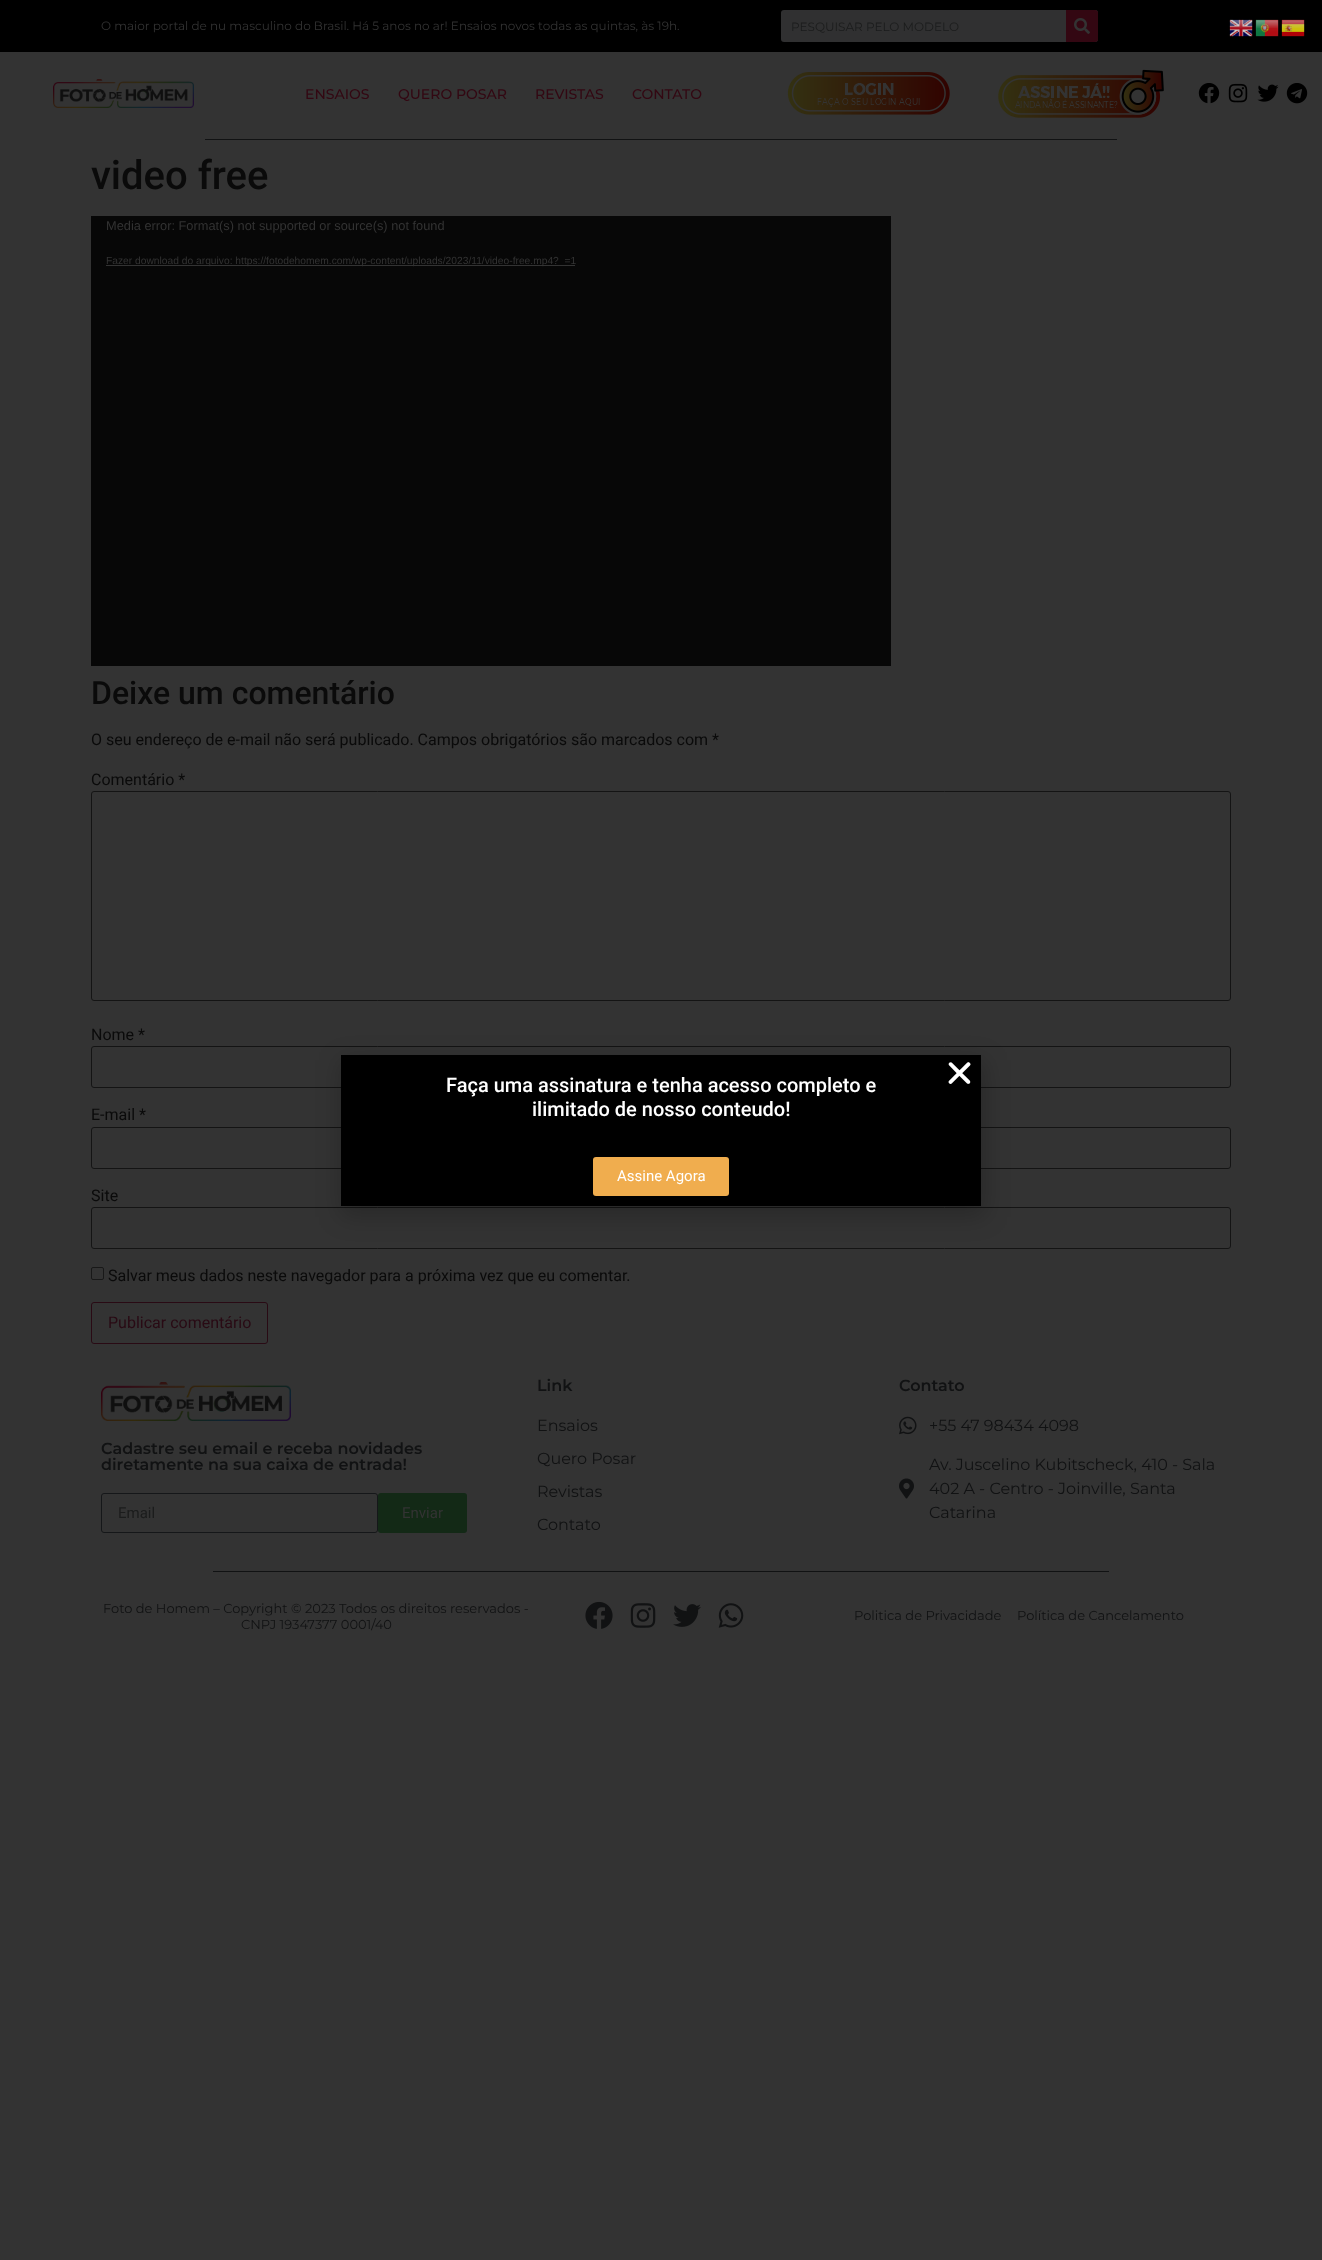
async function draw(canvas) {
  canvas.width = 1322
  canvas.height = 2260
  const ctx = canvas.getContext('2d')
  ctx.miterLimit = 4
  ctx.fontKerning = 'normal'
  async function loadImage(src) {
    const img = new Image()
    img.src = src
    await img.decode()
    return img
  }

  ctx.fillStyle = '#333'
  ctx.fillRect(0, 0, 1322, 2260)
  ctx.fillStyle = '#000'
  ctx.fillRect(0, 0, 1322, 52)
  ctx.font = '12px Montserrat'
  ctx.fillStyle = '#333'
  ctx.fillText('O maior portal de nu masculino do Brasil. Há 5 anos no ar! Ensaios novos todas as quintas, às 19h.', 101, 30)
  ctx.fillStyle = '#303031'
  ctx.beginPath()
  ctx.roundRect(781, 10, 317, 32, 3)
  ctx.fill()
  ctx.fillStyle = '#1b1c1c'
  ctx.fillText('PESQUISAR PELO MODELO', 791, 31)
  ctx.fillStyle = '#330712'
  ctx.beginPath()
  ctx.roundRect(1066, 10, 32, 32, [0, 3, 3, 0])
  ctx.fill()
  ctx.drawImage(await loadImage('image0.png'), 1074, 18, 16, 16)
  ctx.drawImage(await loadImage('image1.png'), 53, 79, 141, 29)
  ctx.font = '500 14px Montserrat'
  ctx.fillText('ENSAIOS', 305, 99)
  ctx.fillText('QUERO POSAR', 398, 99)
  ctx.fillText('REVISTAS', 535, 99)
  ctx.fillText('CONTATO', 632, 99)
  ctx.drawImage(await loadImage('image2.png'), 787, 72, 163, 43)
  ctx.drawImage(await loadImage('image3.png'), 998, 69, 166, 49)
  ctx.drawImage(await loadImage('image4.png'), 1198, 83, 22, 21)
  ctx.drawImage(await loadImage('image5.png'), 1228, 83, 20, 20)
  ctx.drawImage(await loadImage('image6.png'), 1257, 84, 22, 18)
  ctx.drawImage(await loadImage('image7.png'), 1286, 83, 22, 21)
  ctx.fillStyle = '#111213'
  ctx.fillRect(205, 139, 912, 1)
  ctx.drawImage(await loadImage('image8.png'), 1229, 19, 24, 18)
  ctx.drawImage(await loadImage('image9.png'), 1255, 19, 24, 18)
  ctx.drawImage(await loadImage('image10.png'), 1281, 19, 24, 18)
  ctx.font = '500 40px Roboto'
  ctx.fillStyle = '#0a0a0a'
  ctx.fillText('video free', 91, 189)
  ctx.fillStyle = '#070707'
  ctx.fillRect(91, 216, 800, 450)
  ctx.font = '12.8px Liberation Sans'
  ctx.fillStyle = '#333'
  ctx.fillText('Media error: Format(s) not supported or source(s) not found', 106, 230)
  ctx.fillRect(106, 265, 469, 1)
  ctx.font = '10.25px Liberation Sans'
  ctx.fillText('Fazer download do arquivo: https://fotodehomem.com/wp-content/uploads/2023/11/video-free.mp4?_=1', 106, 264)
  ctx.font = '500 32px Roboto'
  ctx.fillStyle = '#0a0a0a'
  ctx.fillText('Deixe um comentário', 91, 704)
  ctx.font = '16px Roboto'
  ctx.fillText('O seu endereço de e-mail não será publicado. Campos obrigatórios são marcados com *', 91, 745)
  ctx.fillText('Comentário *', 91, 785)
  ctx.beginPath()
  ctx.roundRect(91.5, 791.5, 1139, 209, 2.5)
  ctx.strokeStyle = '#141414'
  ctx.stroke()
  ctx.fillText('Nome *', 91, 1040)
  ctx.beginPath()
  ctx.roundRect(91.5, 1046.5, 1139, 41, 2.5)
  ctx.stroke()
  ctx.fillText('E-mail *', 91, 1120)
  ctx.beginPath()
  ctx.roundRect(91.5, 1127.5, 1139, 41, 2.5)
  ctx.stroke()
  ctx.fillText('Site', 91, 1201)
  ctx.beginPath()
  ctx.roundRect(91.5, 1207.5, 1139, 41, 2.5)
  ctx.stroke()
  ctx.beginPath()
  ctx.roundRect(91.5, 1267.5, 12, 12, 1.5)
  ctx.strokeStyle = '#181818'
  ctx.stroke()
  ctx.fillText('Salvar meus dados neste navegador para a próxima vez que eu comentar.', 108, 1281)
  ctx.beginPath()
  ctx.roundRect(91.5, 1302.5, 176, 41, 2.5)
  ctx.strokeStyle = '#290a14'
  ctx.stroke()
  ctx.fillStyle = '#290a14'
  ctx.fillText('Publicar comentário', 108, 1328)
  ctx.fillStyle = '#00000033'
  ctx.filter = 'blur(11.5px)'
  ctx.beginPath()
  ctx.rect(340, 1060, 646, 157)
  ctx.fill()
  ctx.filter = 'none'
  ctx.fillStyle = '#000'
  ctx.fillRect(341, 1055, 640, 151)
  ctx.drawImage(await loadImage('image11.png'), 948, 1062, 23, 22)
  ctx.font = '500 20px Roboto'
  ctx.fillStyle = '#fff'
  ctx.fillText('Faça uma assinatura e tenha acesso completo e', 446, 1092)
  ctx.fillText('ilimitado de nosso conteudo!', 532, 1116)
  ctx.fillStyle = '#f0ad4e'
  ctx.beginPath()
  ctx.roundRect(593, 1157, 136, 39, 3)
  ctx.fill()
  ctx.font = '15px Roboto'
  ctx.fillStyle = '#fff'
  ctx.fillText('Assine Agora', 617, 1181)
  ctx.drawImage(await loadImage('image12.png'), 101, 1382, 190, 39)
  ctx.font = '600 16px Montserrat'
  ctx.fillStyle = '#111213'
  ctx.fillText('Cadastre seu email e receba novidades', 101, 1454)
  ctx.fillText('diretamente na sua caixa de entrada!', 101, 1470)
  ctx.beginPath()
  ctx.roundRect(101.5, 1493.5, 276, 39, 2.5)
  ctx.strokeStyle = '#151719'
  ctx.stroke()
  ctx.font = '15px Roboto'
  ctx.fillStyle = '#1b1c1c'
  ctx.fillText('Email', 118, 1518)
  ctx.fillStyle = '#132916'
  ctx.beginPath()
  ctx.roundRect(378, 1493, 89, 40, 3)
  ctx.fill()
  ctx.fillStyle = '#333'
  ctx.fillText('Enviar', 402, 1518)
  ctx.font = '600 16px Montserrat'
  ctx.fillStyle = '#111213'
  ctx.fillText('Link', 537, 1391)
  ctx.font = '16px Montserrat'
  ctx.fillText('Ensaios', 537, 1431)
  ctx.fillText('Quero Posar', 537, 1464)
  ctx.fillText('Revistas', 537, 1497)
  ctx.fillText('Contato', 537, 1530)
  ctx.font = '600 16px Montserrat'
  ctx.fillText('Contato', 899, 1391)
  ctx.drawImage(await loadImage('image13.png'), 899, 1416, 18, 19)
  ctx.font = '16px Montserrat'
  ctx.fillText('+55 47 98434 4098', 929, 1431)
  ctx.drawImage(await loadImage('image14.png'), 899, 1478, 15, 21)
  ctx.fillText('Av. Juscelino Kubitscheck, 410 - Sala', 929, 1470)
  ctx.fillText('402 A - Centro - Joinville, Santa', 929, 1494)
  ctx.fillText('Catarina', 929, 1518)
  ctx.fillRect(213, 1571, 896, 1)
  ctx.font = '13px Montserrat'
  ctx.fillText('Foto de Homem – Copyright © 2023 Todos os direitos reservados -', 103, 1613)
  ctx.fillText('CNPJ 19347377 0001/40', 241, 1629)
  ctx.drawImage(await loadImage('image15.png'), 585, 1601, 28, 28)
  ctx.drawImage(await loadImage('image16.png'), 630, 1603, 26, 25)
  ctx.drawImage(await loadImage('image17.png'), 673, 1604, 28, 23)
  ctx.drawImage(await loadImage('image18.png'), 718, 1603, 26, 25)
  ctx.fillText('Politica de Privacidade', 854, 1620)
  ctx.fillText('Política de Cancelamento', 1017, 1620)
}

draw(document.querySelector('canvas'))
